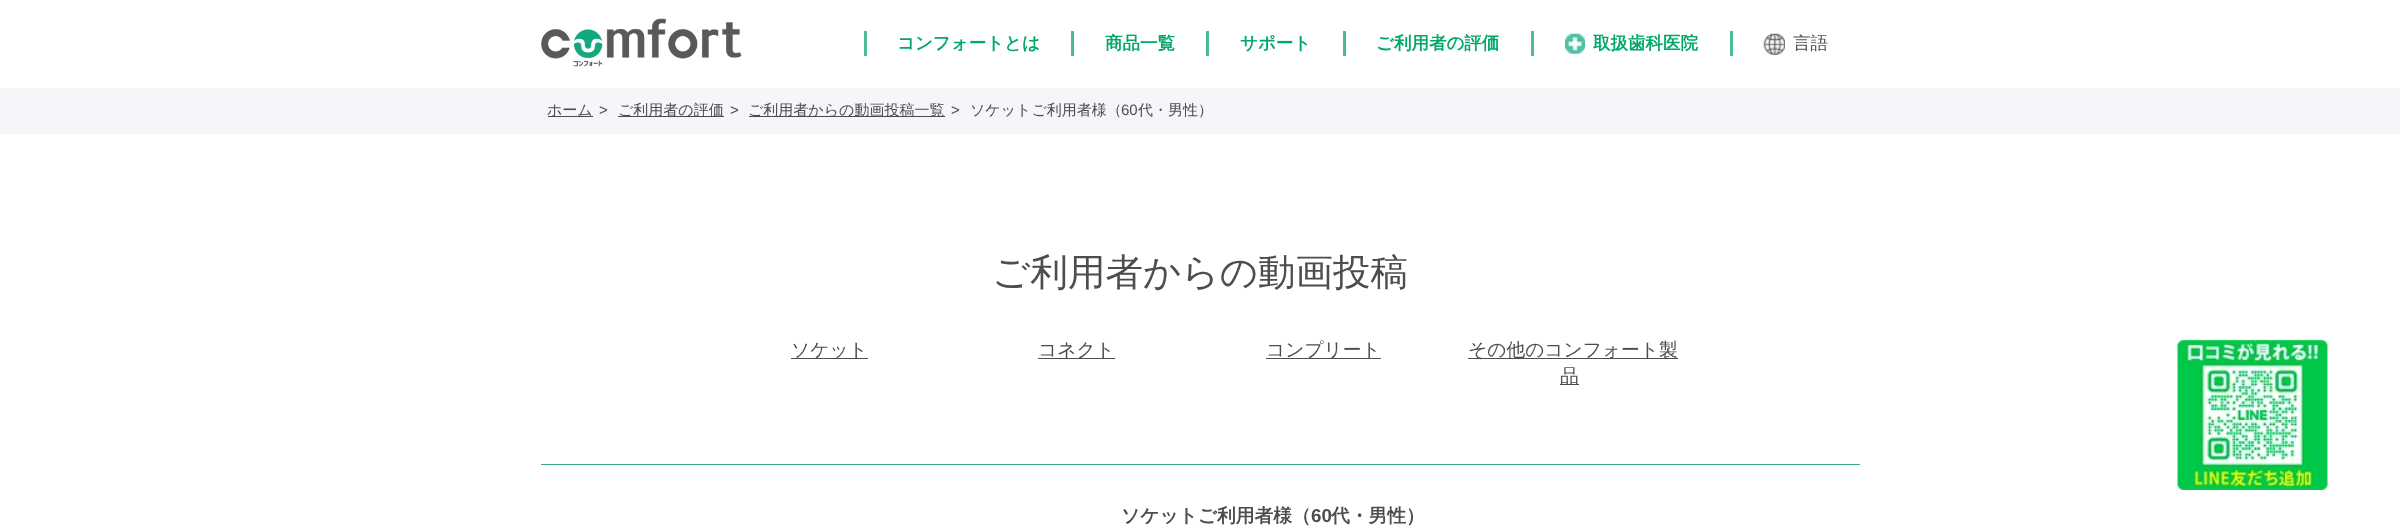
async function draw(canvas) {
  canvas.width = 2400
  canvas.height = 532
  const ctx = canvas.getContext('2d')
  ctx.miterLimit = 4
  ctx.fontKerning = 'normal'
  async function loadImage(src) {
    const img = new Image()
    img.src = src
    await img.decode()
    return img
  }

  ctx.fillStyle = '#fff'
  ctx.fillRect(0, 0, 2400, 532)
  ctx.drawImage(await loadImage('image0.png'), 541, 18, 201, 49)
  ctx.fillStyle = '#4eb89b'
  ctx.fillRect(864, 31, 3, 25)
  ctx.font = 'bold 17.5px WenQuanYi Zen Hei'
  ctx.fillStyle = '#00a967'
  ctx.fillText('コンフォートとは', 897, 49)
  ctx.fillStyle = '#4eb89b'
  ctx.fillRect(1071, 31, 3, 25)
  ctx.fillStyle = '#00a967'
  ctx.fillText('商品一覧', 1105, 49)
  ctx.fillStyle = '#4eb89b'
  ctx.fillRect(1206, 31, 3, 25)
  ctx.fillStyle = '#00a967'
  ctx.fillText('サポート', 1240, 49)
  ctx.fillStyle = '#4eb89b'
  ctx.fillRect(1343, 31, 3, 25)
  ctx.fillStyle = '#00a967'
  ctx.fillText('ご利用者の評価', 1376, 49)
  ctx.fillStyle = '#4eb89b'
  ctx.fillRect(1531, 31, 3, 25)
  ctx.drawImage(await loadImage('image1.png'), 1565, 33, 20, 21)
  ctx.fillStyle = '#00a967'
  ctx.fillText('取扱歯科医院', 1593, 49)
  ctx.fillStyle = '#4eb89b'
  ctx.fillRect(1730, 31, 3, 25)
  ctx.drawImage(await loadImage('image2.png'), 1763, 33, 22, 22)
  ctx.font = '500 17.5px WenQuanYi Zen Hei'
  ctx.fillStyle = '#4d4d4d'
  ctx.fillText('言語', 1793, 49)
  ctx.fillStyle = '#f5f5fa'
  ctx.fillRect(0, 88, 2400, 46)
  ctx.fillStyle = '#4d4d4d'
  ctx.fillRect(548, 116, 45, 1)
  ctx.font = '500 15px WenQuanYi Zen Hei'
  ctx.fillText('ホーム', 547, 115)
  ctx.font = '15px Liberation Sans'
  ctx.fillText('>', 599, 115)
  ctx.fillRect(618, 116, 106, 1)
  ctx.font = '500 15px WenQuanYi Zen Hei'
  ctx.fillText('ご利用者の評価', 618, 115)
  ctx.font = '15px Liberation Sans'
  ctx.fillText('>', 730, 115)
  ctx.fillRect(749, 116, 196, 1)
  ctx.font = '500 15px WenQuanYi Zen Hei'
  ctx.fillText('ご利用者からの動画投稿一覧', 748, 115)
  ctx.font = '15px Liberation Sans'
  ctx.fillText('>', 951, 115)
  ctx.font = '500 15px WenQuanYi Zen Hei'
  ctx.fillText('ソケットご利用者様（', 970, 115)
  ctx.font = '15px Liberation Sans'
  ctx.fillText('60', 1121, 115)
  ctx.font = '500 15px WenQuanYi Zen Hei'
  ctx.fillText('代・男性）', 1138, 115)
  ctx.font = '500 37.5px WenQuanYi Zen Hei'
  ctx.fillText('ご利用者からの動画投稿', 992, 285)
  ctx.fillRect(791, 358, 77, 1)
  ctx.font = '500 18.75px WenQuanYi Zen Hei'
  ctx.fillText('ソケット', 791, 356)
  ctx.fillRect(1038, 358, 77, 1)
  ctx.fillText('コネクト', 1038, 356)
  ctx.fillRect(1266, 358, 115, 1)
  ctx.fillText('コンプリート', 1266, 356)
  ctx.fillRect(1468, 358, 210, 1)
  ctx.fillText('その他のコンフォート製', 1468, 356)
  ctx.fillRect(1560, 384, 19, 1)
  ctx.fillText('品', 1560, 382)
  ctx.fillStyle = '#3ba77e'
  ctx.fillRect(541, 464, 1319, 1)
  ctx.font = 'bold 18.75px WenQuanYi Zen Hei'
  ctx.fillStyle = '#4d4d4d'
  ctx.fillText('ソケットご利用者様（', 1121, 522)
  ctx.font = 'bold 18.75px Liberation Sans'
  ctx.fillText('60', 1311, 522)
  ctx.font = 'bold 18.75px WenQuanYi Zen Hei'
  ctx.fillText('代・男性）', 1331, 522)
  ctx.drawImage(await loadImage('image3.png'), 2177, 339, 151, 151)
}

draw(document.querySelector('canvas'))
